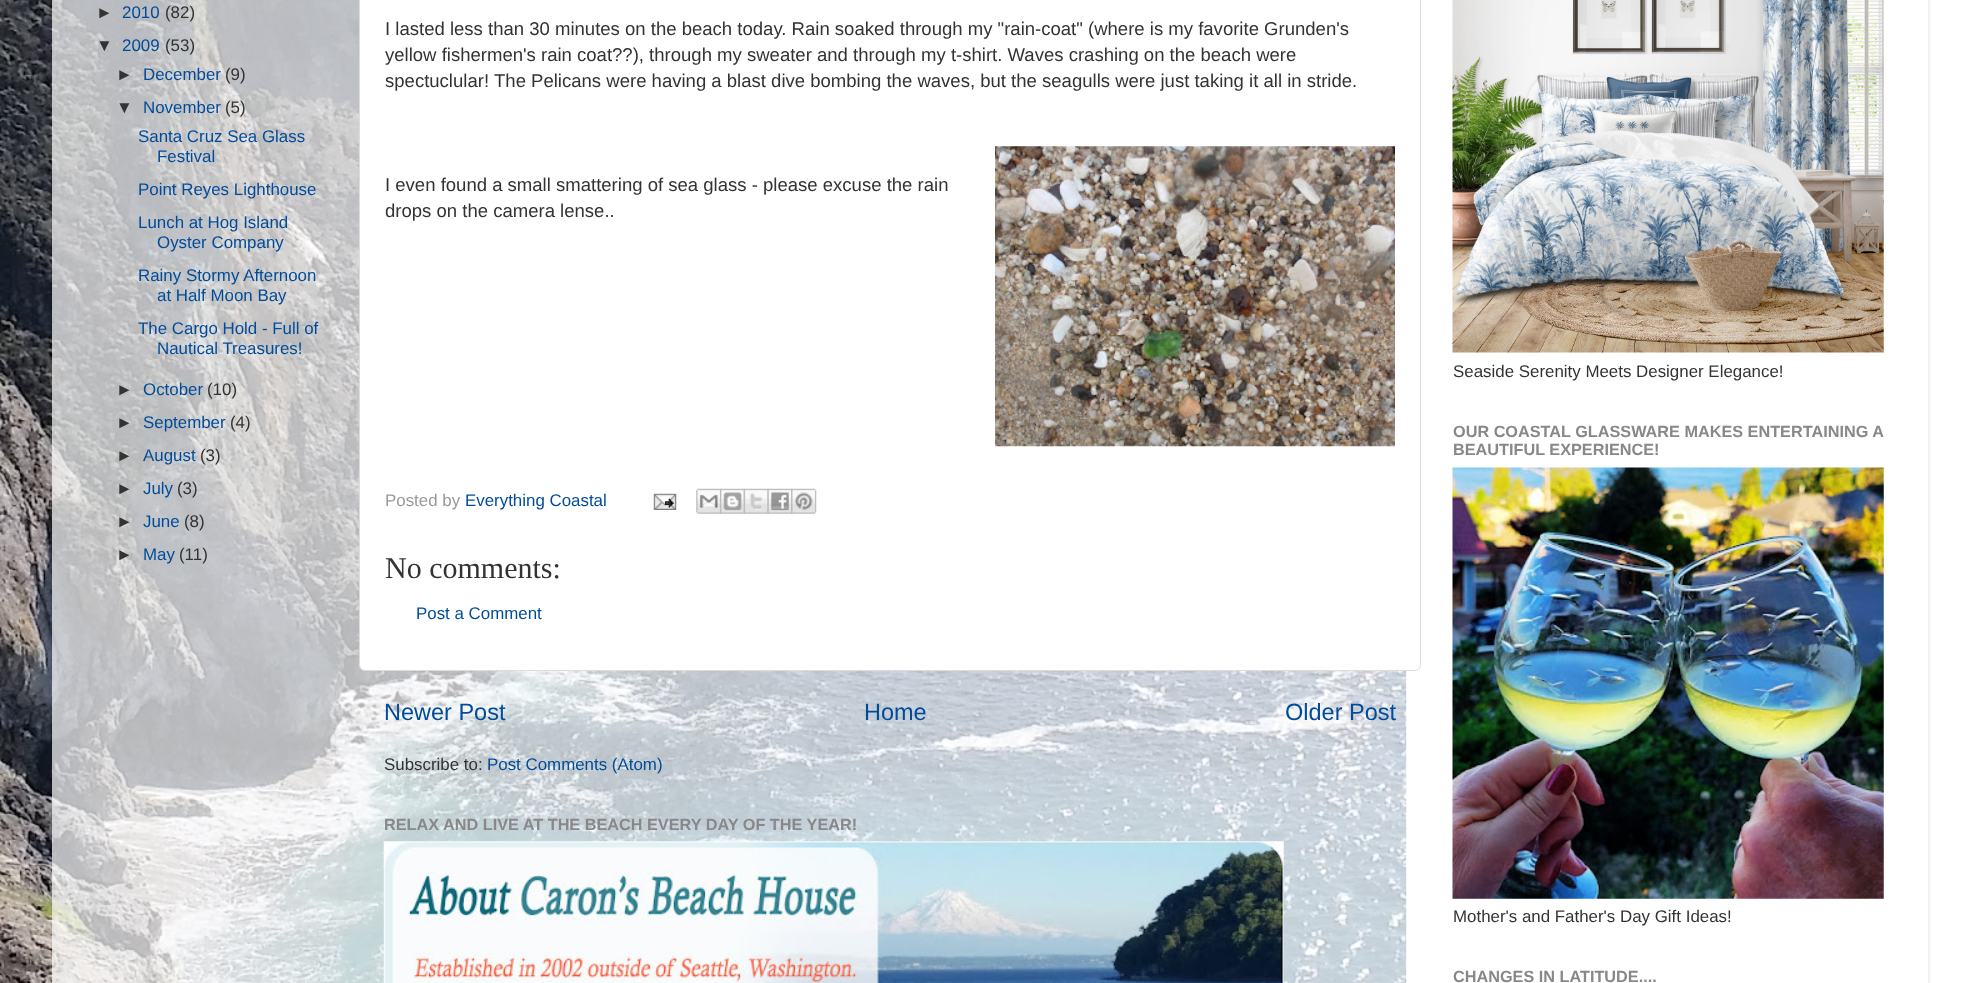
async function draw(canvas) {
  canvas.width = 1979
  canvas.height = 983
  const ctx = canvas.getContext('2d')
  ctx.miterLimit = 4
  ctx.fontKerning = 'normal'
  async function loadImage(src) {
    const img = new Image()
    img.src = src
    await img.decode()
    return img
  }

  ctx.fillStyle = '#fff'
  ctx.fillRect(0, 0, 1979, 983)
  ctx.drawImage(await loadImage('image0.png'), 0, 0, 1407, 983)
  ctx.save()
  ctx.beginPath()
  ctx.moveTo(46, 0)
  ctx.lineTo(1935, 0)
  ctx.lineTo(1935, 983)
  ctx.lineTo(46, 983)
  ctx.closePath()
  ctx.moveTo(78, -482)
  ctx.lineTo(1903, -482)
  ctx.bezierCurveTo(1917, -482, 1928, -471, 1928, -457)
  ctx.lineTo(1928, 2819)
  ctx.lineTo(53, 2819)
  ctx.lineTo(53, -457)
  ctx.bezierCurveTo(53, -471, 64, -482, 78, -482)
  ctx.closePath()
  ctx.clip('evenodd')
  ctx.fillStyle = '#00000026'
  ctx.filter = 'blur(2px)'
  ctx.beginPath()
  ctx.roundRect(53, -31, 1875, 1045, 25)
  ctx.fill()
  ctx.filter = 'none'
  ctx.restore()
  ctx.fillStyle = '#ffffffb3'
  ctx.fillRect(52, 0, 1355, 983)
  ctx.font = '16.9px Liberation Sans'
  ctx.fillStyle = '#333'
  ctx.fillText('►', 96, 18)
  ctx.fillStyle = '#004c99'
  ctx.fillText('2010', 122, 18)
  ctx.fillStyle = '#333'
  ctx.fillText('(82)', 165, 18)
  ctx.fillText('▼', 96, 51)
  ctx.fillStyle = '#004c99'
  ctx.fillText('2009', 122, 51)
  ctx.fillStyle = '#333'
  ctx.fillText('(53)', 165, 51)
  ctx.fillText('►', 116, 80)
  ctx.fillStyle = '#004c99'
  ctx.fillText('December', 143, 80)
  ctx.fillStyle = '#333'
  ctx.fillText('(9)', 225, 80)
  ctx.fillText('▼', 116, 113)
  ctx.fillStyle = '#004c99'
  ctx.fillText('November', 143, 113)
  ctx.fillStyle = '#333'
  ctx.fillText('(5)', 225, 113)
  ctx.fillStyle = '#004c99'
  ctx.fillText('Santa Cruz Sea Glass', 138, 142)
  ctx.fillText('Festival', 157, 162)
  ctx.fillText('Point Reyes Lighthouse', 138, 195)
  ctx.fillText('Lunch at Hog Island', 138, 228)
  ctx.fillText('Oyster Company', 157, 248)
  ctx.fillText('Rainy Stormy Afternoon', 138, 281)
  ctx.fillText('at Half Moon Bay', 157, 301)
  ctx.fillText('The Cargo Hold - Full of', 138, 334)
  ctx.fillText('Nautical Treasures!', 157, 354)
  ctx.fillStyle = '#333'
  ctx.fillText('►', 116, 395)
  ctx.fillStyle = '#004c99'
  ctx.fillText('October', 143, 395)
  ctx.fillStyle = '#333'
  ctx.fillText('(10)', 207, 395)
  ctx.fillText('►', 116, 428)
  ctx.fillStyle = '#004c99'
  ctx.fillText('September', 143, 428)
  ctx.fillStyle = '#333'
  ctx.fillText('(4)', 230, 428)
  ctx.fillText('►', 116, 461)
  ctx.fillStyle = '#004c99'
  ctx.fillText('August', 143, 461)
  ctx.fillStyle = '#333'
  ctx.fillText('(3)', 200, 461)
  ctx.fillText('►', 116, 494)
  ctx.fillStyle = '#004c99'
  ctx.fillText('July', 143, 494)
  ctx.fillStyle = '#333'
  ctx.fillText('(3)', 177, 494)
  ctx.fillText('►', 116, 527)
  ctx.fillStyle = '#004c99'
  ctx.fillText('June', 143, 527)
  ctx.fillStyle = '#333'
  ctx.fillText('(8)', 184, 527)
  ctx.fillText('►', 116, 560)
  ctx.fillStyle = '#004c99'
  ctx.fillText('May', 143, 560)
  ctx.fillStyle = '#333'
  ctx.fillText('(11)', 179, 560)
  ctx.fillStyle = '#fff'
  ctx.beginPath()
  ctx.roundRect(359.5, -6.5, 1061, 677, 5.5)
  ctx.fill()
  ctx.strokeStyle = '#ddd'
  ctx.stroke()
  ctx.font = '18.55px Liberation Sans'
  ctx.fillStyle = '#333'
  ctx.fillText('I lasted less than 30 minutes on the beach today. Rain soaked through my "rain-coat" (where is my favorite Grunden\'s', 385, 35)
  ctx.fillText('yellow fishermen\'s rain coat??), through my sweater and through my t-shirt. Waves crashing on the beach were', 385, 61)
  ctx.fillText('spectuclular!', 385, 87)
  ctx.fillText('The Pelicans were having a blast dive bombing the waves, but the seagulls were just taking it all in stride.', 494, 87)
  ctx.fillText('I even found a small smattering of sea glass - please excuse the rain', 385, 191)
  ctx.drawImage(await loadImage('image1.png'), 995, 146, 400, 301)
  ctx.fillText('drops on the camera lense..', 385, 217)
  ctx.font = '16.9px Liberation Sans'
  ctx.fillStyle = '#999'
  ctx.fillText('Posted by', 385, 506)
  ctx.fillStyle = '#004c99'
  ctx.fillText('Everything Coastal', 465, 506)
  ctx.drawImage(await loadImage('image2.png'), 653, 493, 24, 17)
  ctx.drawImage(await loadImage('image3.png'), 696, 488, 26, 26)
  ctx.drawImage(await loadImage('image4.png'), 720, 488, 25, 26)
  ctx.drawImage(await loadImage('image5.png'), 743, 488, 26, 26)
  ctx.drawImage(await loadImage('image6.png'), 767, 488, 26, 26)
  ctx.drawImage(await loadImage('image7.png'), 791, 488, 26, 26)
  ctx.font = '30px Liberation Serif'
  ctx.fillStyle = '#333'
  ctx.fillText('No comments:', 385, 578)
  ctx.font = '16.9px Liberation Sans'
  ctx.fillStyle = '#004c99'
  ctx.fillText('Post a Comment', 416, 619)
  ctx.font = '23.5px Liberation Sans'
  ctx.fillText('Newer Post', 384, 720)
  ctx.fillText('Home', 864, 720)
  ctx.fillText('Older Post', 1285, 720)
  ctx.font = '16.9px Liberation Sans'
  ctx.fillStyle = '#333'
  ctx.fillText('Subscribe to:', 384, 770)
  ctx.fillStyle = '#004c99'
  ctx.fillText('Post Comments (Atom)', 487, 770)
  ctx.font = 'bold 16.25px Liberation Sans'
  ctx.fillStyle = '#888'
  ctx.fillText('RELAX AND LIVE AT THE BEACH EVERY DAY OF THE YEAR!', 384, 830)
  ctx.drawImage(await loadImage('image8.png'), 383, 841, 901, 142)
  ctx.drawImage(await loadImage('image9.png'), 1452, 0, 432, 353)
  ctx.font = '16.9px Liberation Sans'
  ctx.fillStyle = '#333'
  ctx.fillText('Seaside Serenity Meets Designer Elegance!', 1453, 377)
  ctx.font = 'bold 16.25px Liberation Sans'
  ctx.fillStyle = '#888'
  ctx.fillText('OUR COASTAL GLASSWARE MAKES ENTERTAINING A', 1453, 437)
  ctx.fillText('BEAUTIFUL EXPERIENCE!', 1453, 455)
  ctx.drawImage(await loadImage('image10.png'), 1452, 467, 432, 432)
  ctx.font = '16.9px Liberation Sans'
  ctx.fillStyle = '#333'
  ctx.fillText('Mother\'s and Father\'s Day Gift Ideas!', 1453, 922)
  ctx.font = 'bold 16.25px Liberation Sans'
  ctx.fillStyle = '#888'
  ctx.fillText('CHANGES IN LATITUDE....', 1453, 982)
}

draw(document.querySelector('canvas'))
